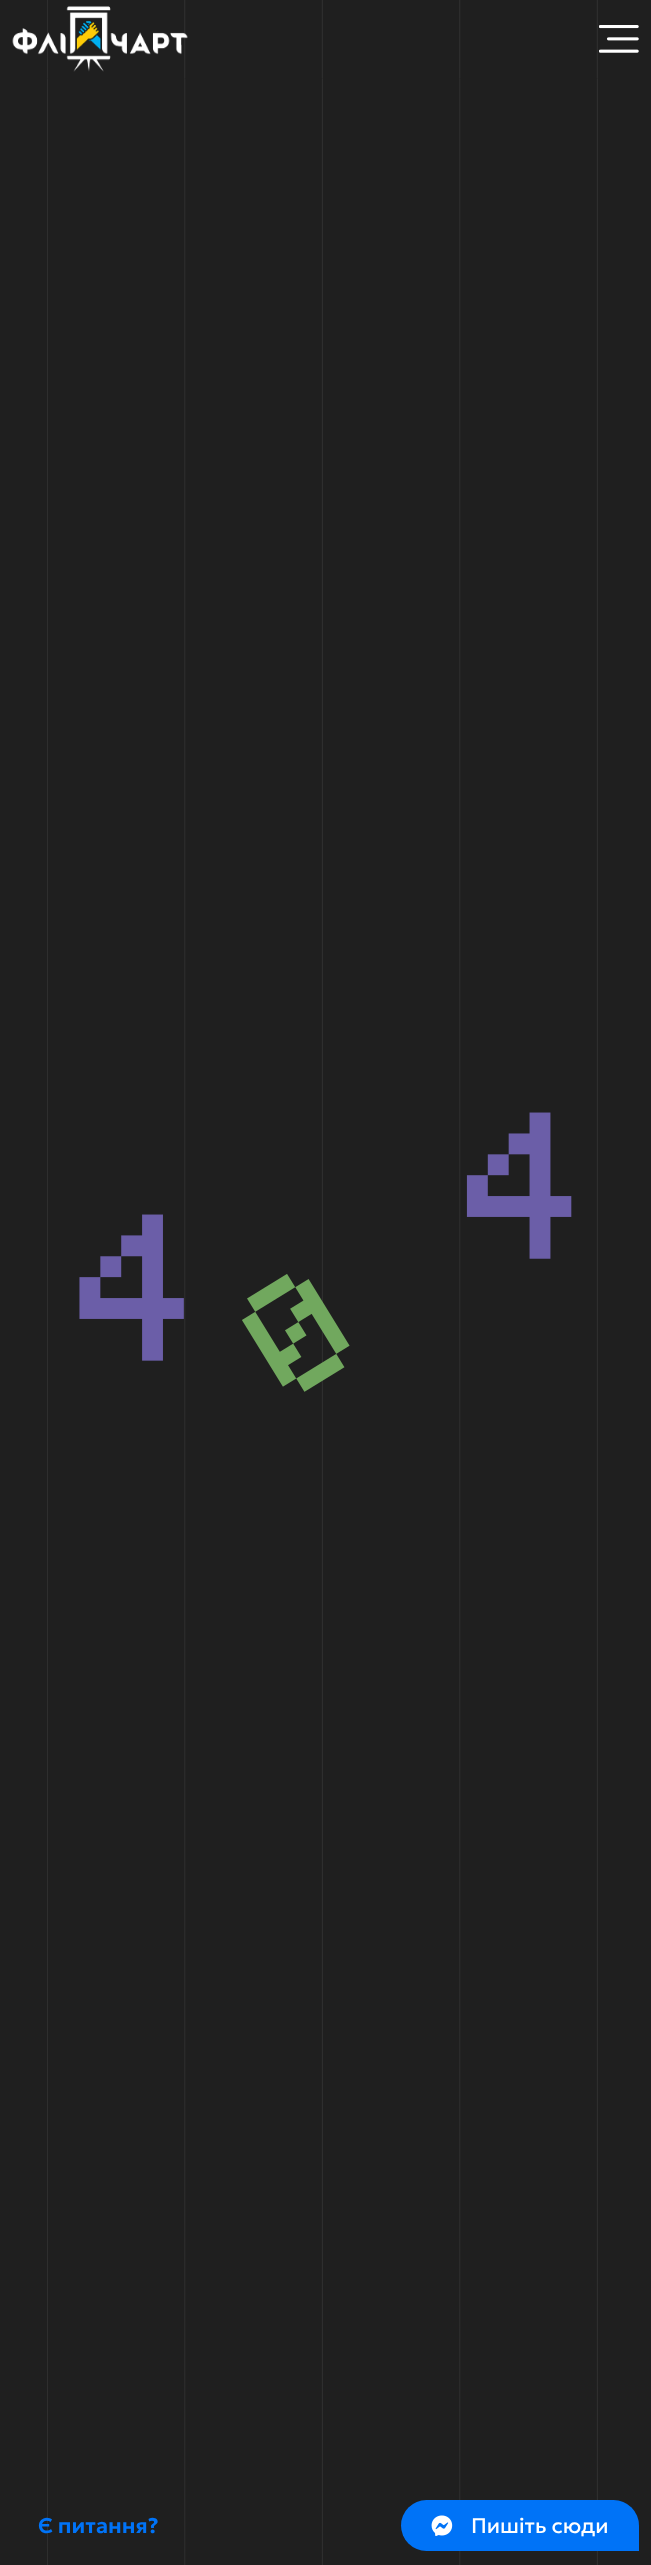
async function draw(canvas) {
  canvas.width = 651
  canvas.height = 2565
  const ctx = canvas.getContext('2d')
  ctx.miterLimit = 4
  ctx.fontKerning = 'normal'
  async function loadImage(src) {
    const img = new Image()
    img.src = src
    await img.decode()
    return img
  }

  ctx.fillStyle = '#1f1f1f'
  ctx.fillRect(0, 0, 651, 2565)
  ctx.drawImage(await loadImage('image0.png'), 47, 79, 551, 2486)
  ctx.drawImage(await loadImage('image1.png'), 47, 0, 551, 79)
  ctx.drawImage(await loadImage('image2.png'), 12, 6, 176, 66)
  ctx.drawImage(await loadImage('image3.png'), 599, 25, 40, 28)
  ctx.drawImage(await loadImage('image4.png'), 79, 1112, 493, 280)
  ctx.font = '600 21.25px Geologica'
  ctx.fillStyle = '#0073f7'
  ctx.fillText('Є питання?', 38, 2533)
  ctx.beginPath()
  ctx.roundRect(401, 2500, 238, 51, [25.5, 25.5, 0, 25.5])
  ctx.fill()
  ctx.drawImage(await loadImage('image5.png'), 431, 2515, 22, 21)
  ctx.font = '21.25px Geologica'
  ctx.fillStyle = '#fff'
  ctx.fillText('Пишіть сюди', 471, 2533)
}

draw(document.querySelector('canvas'))
